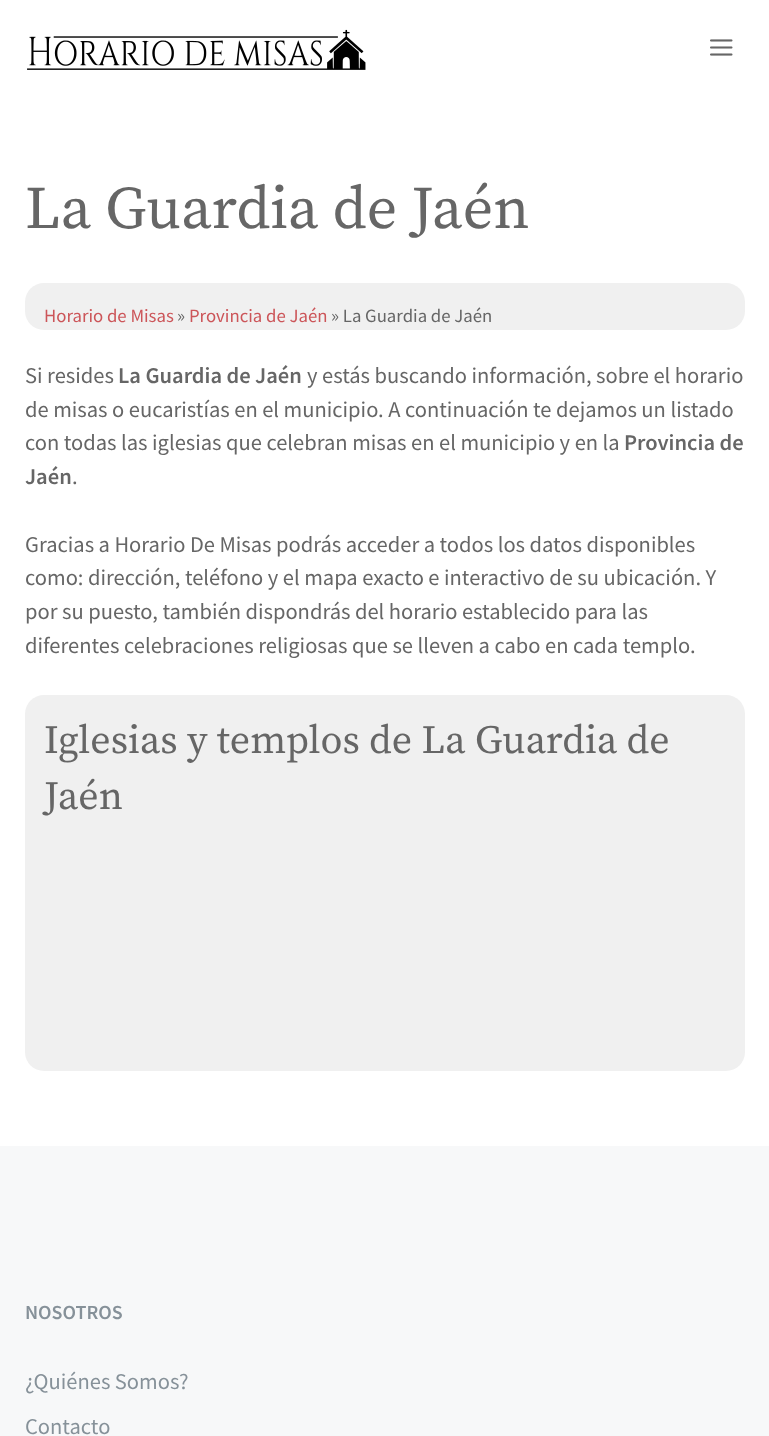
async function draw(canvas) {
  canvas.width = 769
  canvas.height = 1436
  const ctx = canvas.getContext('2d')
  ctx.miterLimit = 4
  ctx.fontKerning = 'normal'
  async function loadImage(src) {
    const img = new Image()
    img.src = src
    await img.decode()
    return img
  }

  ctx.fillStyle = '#fff'
  ctx.fillRect(0, 0, 769, 1436)
  ctx.drawImage(await loadImage('image0.png'), 27, 29, 339, 41)
  ctx.drawImage(await loadImage('image1.png'), 710, 39, 23, 17)
  ctx.font = '60px Source Serif Pro'
  ctx.fillStyle = '#666'
  ctx.fillText('La Guardia de Jaén', 25, 228)
  ctx.fillStyle = '#f0f0f0'
  ctx.beginPath()
  ctx.roundRect(25, 283, 720, 47, 19)
  ctx.fill()
  ctx.font = '18.75px Source Sans Pro'
  ctx.fillStyle = '#cc5559'
  ctx.fillText('Horario de Misas', 44, 322)
  ctx.fillStyle = '#666'
  ctx.fillText('»', 177, 322)
  ctx.fillStyle = '#cc5559'
  ctx.fillText('Provincia de Jaén', 189, 322)
  ctx.fillStyle = '#666'
  ctx.fillText('» La Guardia de Jaén', 331, 322)
  ctx.font = '22.5px Source Sans Pro'
  ctx.fillText('Si resides', 25, 383)
  ctx.font = '600 22.5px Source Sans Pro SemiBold'
  ctx.fillText('La Guardia de Jaén', 118, 383)
  ctx.font = '22.5px Source Sans Pro'
  ctx.fillText('y estás buscando información, sobre el horario', 307, 383)
  ctx.fillText('de misas o eucaristías en el municipio. A continuación te dejamos un listado', 25, 417)
  ctx.fillText('con todas las iglesias que celebran misas en el municipio y en la', 25, 450)
  ctx.font = '600 22.5px Source Sans Pro SemiBold'
  ctx.fillText('Provincia de', 624, 450)
  ctx.fillText('Jaén', 25, 484)
  ctx.font = '22.5px Source Sans Pro'
  ctx.fillText('.', 72, 484)
  ctx.fillText('Gracias a Horario De Misas podrás acceder a todos los datos disponibles', 25, 552)
  ctx.fillText('como: dirección, teléfono y el mapa exacto e interactivo de su ubicación. Y', 25, 585)
  ctx.fillText('por su puesto, también dispondrás del horario establecido para las', 25, 619)
  ctx.fillText('diferentes celebraciones religiosas que se lleven a cabo en cada templo.', 25, 653)
  ctx.fillStyle = '#f0f0f0'
  ctx.beginPath()
  ctx.roundRect(25, 695, 720, 376, 19)
  ctx.fill()
  ctx.font = '40px Source Serif Pro'
  ctx.fillStyle = '#666'
  ctx.fillText('Iglesias y templos de La Guardia de', 44, 753)
  ctx.fillText('Jaén', 44, 809)
  ctx.fillStyle = '#f7f8f9'
  ctx.fillRect(0, 1146, 769, 290)
  ctx.font = '600 20px Source Sans Pro SemiBold'
  ctx.fillStyle = '#869199'
  ctx.fillText('NOSOTROS', 25, 1319)
  ctx.font = '22.5px Source Sans Pro'
  ctx.fillText('¿Quiénes Somos?', 25, 1389)
  ctx.fillText('Contacto', 25, 1434)
}

draw(document.querySelector('canvas'))
